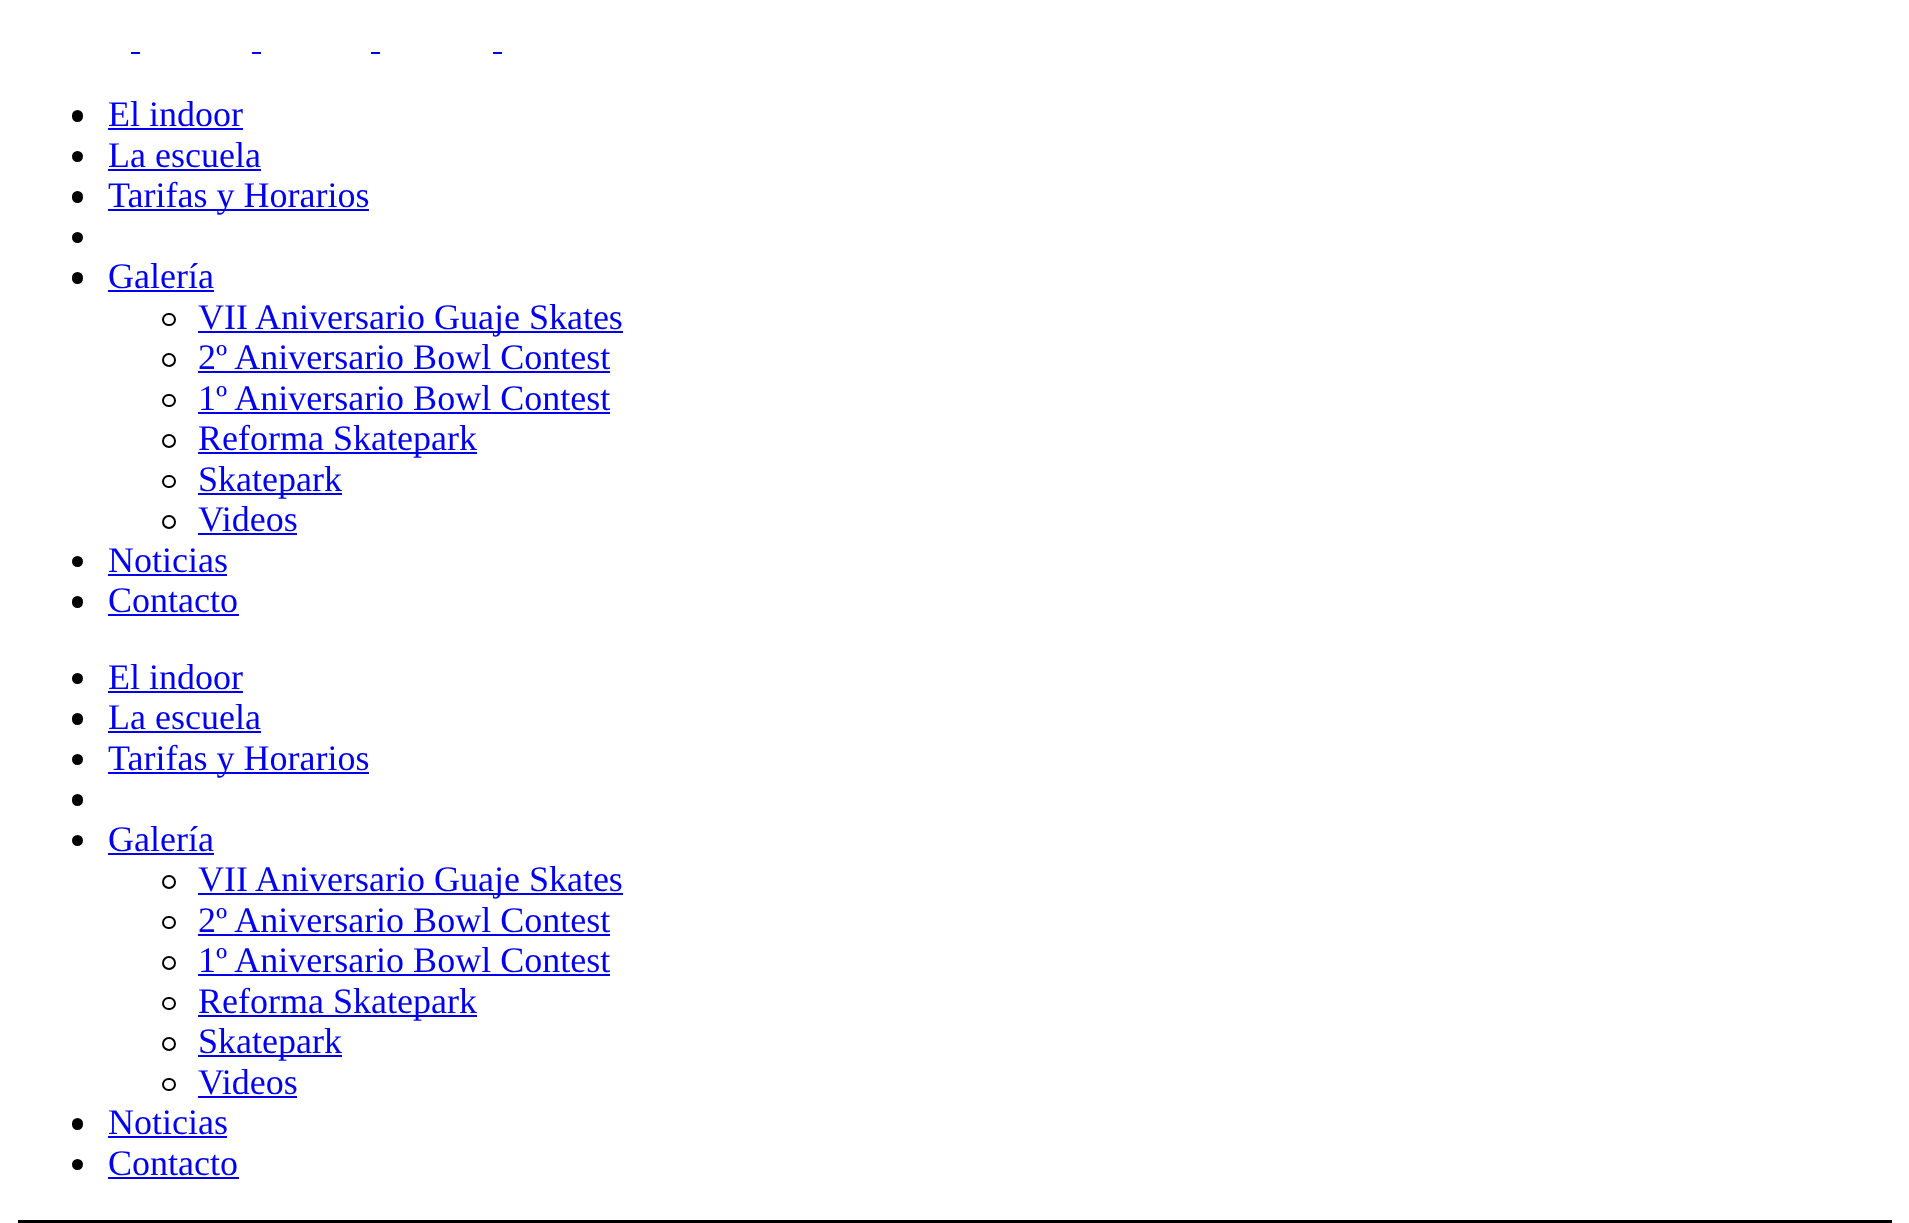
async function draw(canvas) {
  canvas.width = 1909
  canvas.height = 1223
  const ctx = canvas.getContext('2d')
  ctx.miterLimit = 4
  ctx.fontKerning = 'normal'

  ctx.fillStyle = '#fff'
  ctx.fillRect(0, 0, 1909, 1223)
  ctx.fillStyle = '#00e'
  ctx.fillRect(131, 52, 9, 2)
  ctx.fillRect(252, 52, 9, 2)
  ctx.fillRect(371, 52, 9, 2)
  ctx.fillRect(493, 52, 9, 2)
  ctx.fillStyle = '#000'
  ctx.beginPath()
  ctx.roundRect(72, 110, 11, 12, 5.5)
  ctx.fill()
  ctx.font = '36px Liberation Serif'
  ctx.fillStyle = '#00e'
  ctx.fillText('El indoor', 108, 126)
  ctx.fillRect(108, 128, 135, 2)
  ctx.fillStyle = '#000'
  ctx.beginPath()
  ctx.arc(77.5, 156.5, 5.5, 0, 2 * Math.PI)
  ctx.fill()
  ctx.fillStyle = '#00e'
  ctx.fillText('La escuela', 108, 167)
  ctx.fillRect(108, 169, 153, 2)
  ctx.fillStyle = '#000'
  ctx.beginPath()
  ctx.roundRect(72, 191, 11, 12, 5.5)
  ctx.fill()
  ctx.fillStyle = '#00e'
  ctx.fillRect(108, 209, 261, 2)
  ctx.fillText('Tarifas y Horarios', 108, 207)
  ctx.fillStyle = '#000'
  ctx.beginPath()
  ctx.arc(77.5, 237.5, 5.5, 0, 2 * Math.PI)
  ctx.fill()
  ctx.beginPath()
  ctx.roundRect(72, 272, 11, 12, 5.5)
  ctx.fill()
  ctx.fillStyle = '#00e'
  ctx.fillText('Galería', 108, 288)
  ctx.fillRect(108, 290, 106, 2)
  ctx.beginPath()
  ctx.roundRect(163, 314, 12, 11, 5.5)
  ctx.strokeStyle = '#000'
  ctx.lineWidth = 2
  ctx.stroke()
  ctx.fillRect(198, 331, 425, 2)
  ctx.fillText('VII Aniversario Guaje Skates', 198, 329)
  ctx.beginPath()
  ctx.arc(169, 360, 6, 0, 2 * Math.PI)
  ctx.stroke()
  ctx.fillText('2º Aniversario Bowl Contest', 198, 369)
  ctx.fillRect(198, 371, 412, 2)
  ctx.beginPath()
  ctx.roundRect(163, 395, 12, 11, 5.5)
  ctx.stroke()
  ctx.fillText('1º Aniversario Bowl Contest', 198, 410)
  ctx.fillRect(198, 412, 412, 2)
  ctx.beginPath()
  ctx.arc(169, 441, 6, 0, 2 * Math.PI)
  ctx.stroke()
  ctx.fillRect(198, 452, 279, 2)
  ctx.fillText('Reforma Skatepark', 198, 450)
  ctx.beginPath()
  ctx.roundRect(163, 476, 12, 11, 5.5)
  ctx.stroke()
  ctx.fillRect(198, 493, 144, 2)
  ctx.fillText('Skatepark', 198, 491)
  ctx.beginPath()
  ctx.arc(169, 522, 6, 0, 2 * Math.PI)
  ctx.stroke()
  ctx.fillText('Videos', 198, 531)
  ctx.fillRect(198, 533, 99, 2)
  ctx.fillStyle = '#000'
  ctx.beginPath()
  ctx.arc(77.5, 561.5, 5.5, 0, 2 * Math.PI)
  ctx.fill()
  ctx.fillStyle = '#00e'
  ctx.fillText('Noticias', 108, 572)
  ctx.fillRect(108, 574, 119, 2)
  ctx.fillStyle = '#000'
  ctx.beginPath()
  ctx.roundRect(72, 596, 11, 12, 5.5)
  ctx.fill()
  ctx.fillStyle = '#00e'
  ctx.fillText('Contacto', 108, 612)
  ctx.fillRect(108, 614, 131, 2)
  ctx.fillStyle = '#000'
  ctx.beginPath()
  ctx.arc(77.5, 678.5, 5.5, 0, 2 * Math.PI)
  ctx.fill()
  ctx.fillStyle = '#00e'
  ctx.fillText('El indoor', 108, 689)
  ctx.fillRect(108, 691, 135, 2)
  ctx.fillStyle = '#000'
  ctx.beginPath()
  ctx.roundRect(72, 713, 11, 12, 5.5)
  ctx.fill()
  ctx.fillStyle = '#00e'
  ctx.fillText('La escuela', 108, 729)
  ctx.fillRect(108, 731, 153, 2)
  ctx.fillStyle = '#000'
  ctx.beginPath()
  ctx.arc(77.5, 759.5, 5.5, 0, 2 * Math.PI)
  ctx.fill()
  ctx.fillStyle = '#00e'
  ctx.fillRect(108, 772, 261, 2)
  ctx.fillText('Tarifas y Horarios', 108, 770)
  ctx.fillStyle = '#000'
  ctx.beginPath()
  ctx.roundRect(72, 794, 11, 12, 5.5)
  ctx.fill()
  ctx.beginPath()
  ctx.arc(77.5, 840.5, 5.5, 0, 2 * Math.PI)
  ctx.fill()
  ctx.fillStyle = '#00e'
  ctx.fillText('Galería', 108, 851)
  ctx.fillRect(108, 853, 106, 2)
  ctx.beginPath()
  ctx.arc(169, 882, 6, 0, 2 * Math.PI)
  ctx.stroke()
  ctx.fillRect(198, 893, 425, 2)
  ctx.fillText('VII Aniversario Guaje Skates', 198, 891)
  ctx.beginPath()
  ctx.roundRect(163, 917, 12, 11, 5.5)
  ctx.stroke()
  ctx.fillText('2º Aniversario Bowl Contest', 198, 932)
  ctx.fillRect(198, 934, 412, 2)
  ctx.beginPath()
  ctx.arc(169, 963, 6, 0, 2 * Math.PI)
  ctx.stroke()
  ctx.fillText('1º Aniversario Bowl Contest', 198, 972)
  ctx.fillRect(198, 974, 412, 2)
  ctx.beginPath()
  ctx.roundRect(163, 998, 12, 11, 5.5)
  ctx.stroke()
  ctx.fillRect(198, 1015, 279, 2)
  ctx.fillText('Reforma Skatepark', 198, 1013)
  ctx.beginPath()
  ctx.arc(169, 1044, 6, 0, 2 * Math.PI)
  ctx.stroke()
  ctx.fillRect(198, 1055, 144, 2)
  ctx.fillText('Skatepark', 198, 1053)
  ctx.beginPath()
  ctx.roundRect(163, 1079, 12, 11, 5.5)
  ctx.stroke()
  ctx.fillText('Videos', 198, 1094)
  ctx.fillRect(198, 1096, 99, 2)
  ctx.fillStyle = '#000'
  ctx.beginPath()
  ctx.roundRect(72, 1118, 11, 12, 5.5)
  ctx.fill()
  ctx.fillStyle = '#00e'
  ctx.fillText('Noticias', 108, 1134)
  ctx.fillRect(108, 1136, 119, 2)
  ctx.fillStyle = '#000'
  ctx.beginPath()
  ctx.arc(77.5, 1164.5, 5.5, 0, 2 * Math.PI)
  ctx.fill()
  ctx.fillStyle = '#00e'
  ctx.fillText('Contacto', 108, 1175)
  ctx.fillRect(108, 1177, 131, 2)
  ctx.fillStyle = '#000'
  ctx.fillRect(18, 1220, 1874, 3)
}

draw(document.querySelector('canvas'))
